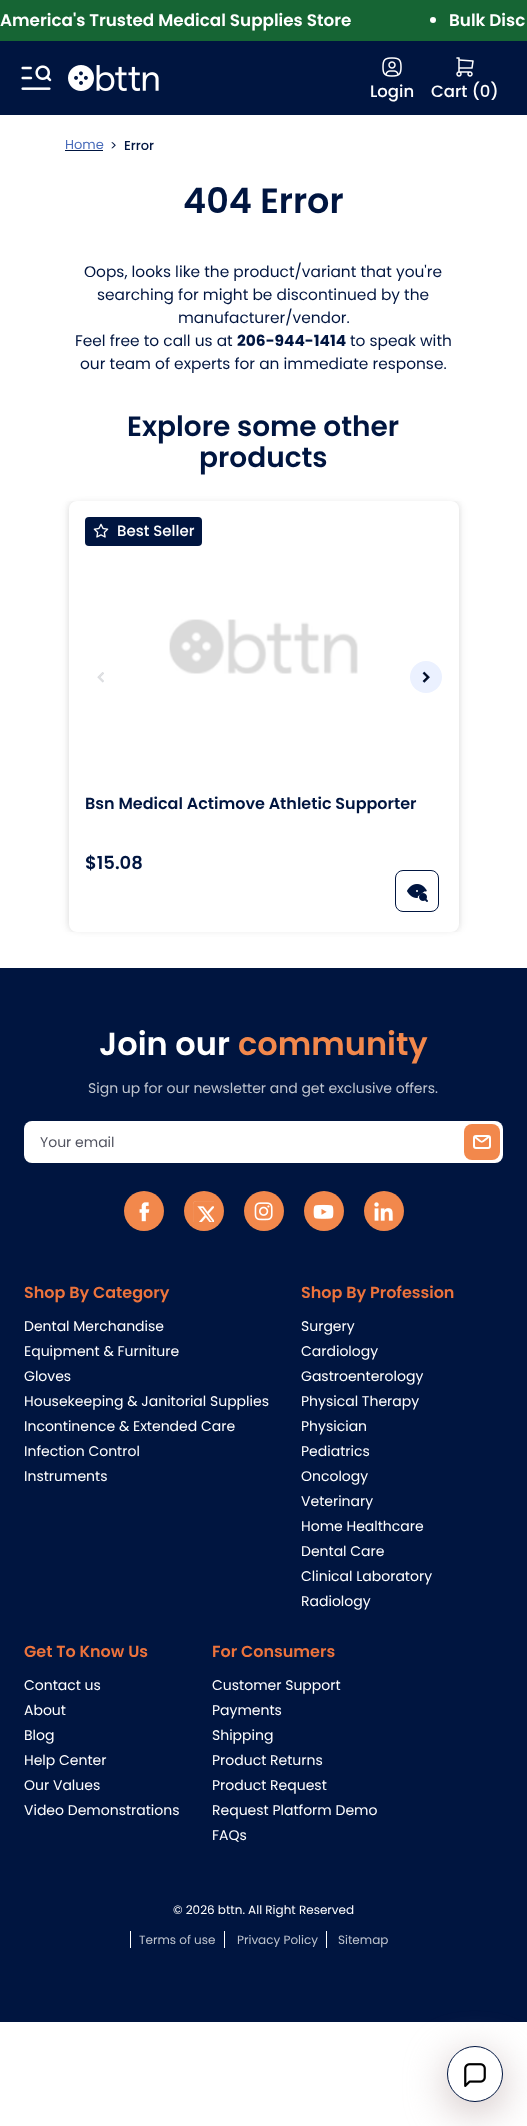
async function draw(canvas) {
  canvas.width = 527
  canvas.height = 2126
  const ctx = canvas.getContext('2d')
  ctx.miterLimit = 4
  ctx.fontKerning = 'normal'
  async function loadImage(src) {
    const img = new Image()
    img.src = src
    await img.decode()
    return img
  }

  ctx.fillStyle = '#fff'
  ctx.fillRect(0, 0, 527, 2126)
  ctx.fillStyle = '#166534'
  ctx.fillRect(0, 0, 527, 41)
  ctx.font = '600 16.8px Poppins'
  ctx.fillStyle = '#fff'
  ctx.fillText('America\'s Trusted Medical Supplies Store', 0, 26)
  ctx.beginPath()
  ctx.arc(433, 20, 3, 0, 2 * Math.PI)
  ctx.fill()
  ctx.fillText('Bulk Disc', 449, 26)
  ctx.fillStyle = '#001540'
  ctx.fillRect(0, 41, 527, 74)
  ctx.drawImage(await loadImage('image0.png'), 21, 65, 31, 25)
  ctx.drawImage(await loadImage('image1.png'), 68, 65, 91, 26)
  ctx.drawImage(await loadImage('image2.png'), 382, 57, 20, 20)
  ctx.font = '500 16.5px Poppins'
  ctx.fillStyle = '#fff'
  ctx.fillText('Login', 370, 97)
  ctx.drawImage(await loadImage('image3.png'), 456, 57, 18, 20)
  ctx.fillText('Cart (0)', 431, 97)
  ctx.font = '13px Poppins'
  ctx.fillStyle = '#496cba'
  ctx.fillText('Home', 65, 149)
  ctx.fillStyle = '#001540'
  ctx.fillRect(65, 150, 38, 1)
  ctx.fillText('>', 110, 150)
  ctx.font = '500 13px Poppins'
  ctx.fillText('Error', 124, 150)
  ctx.font = '600 35px Poppins'
  ctx.fillText('404 Error', 183, 213)
  ctx.font = '15.4px Poppins'
  ctx.fillText('Oops, looks like the product/variant that you\'re', 84, 277)
  ctx.fillText('searching for might be discontinued by the', 97, 300)
  ctx.fillText('manufacturer/vendor.', 178, 323)
  ctx.fillText('Feel free to call us at', 75, 346)
  ctx.font = 'bold 15.4px Poppins'
  ctx.fillText('206-944-1414', 237, 346)
  ctx.font = '15.4px Poppins'
  ctx.fillText('to speak with', 350, 346)
  ctx.fillText('our team of experts for an immediate response.', 80, 369)
  ctx.font = '600 28px Poppins'
  ctx.fillText('Explore some other', 127, 436)
  ctx.fillText('products', 199, 467)
  ctx.fillStyle = '#0000000d'
  ctx.filter = 'blur(3px)'
  ctx.beginPath()
  ctx.roundRect(74, 502, 388, 429, 7)
  ctx.fill()
  ctx.filter = 'none'
  ctx.filter = 'blur(3px)'
  ctx.beginPath()
  ctx.roundRect(66, 502, 388, 429, 7)
  ctx.fill()
  ctx.filter = 'none'
  ctx.save()
  ctx.beginPath()
  ctx.rect(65, 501, 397, 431)
  ctx.clip()
  ctx.filter = 'blur(3px)'
  ctx.beginPath()
  ctx.roundRect(70, 506, 388, 429, 7)
  ctx.fill()
  ctx.filter = 'none'
  ctx.filter = 'blur(3px)'
  ctx.beginPath()
  ctx.roundRect(70, 498, 388, 429, 7)
  ctx.fill()
  ctx.filter = 'none'
  ctx.restore()
  ctx.fillStyle = '#fff'
  ctx.beginPath()
  ctx.roundRect(69, 501, 390, 431, 8)
  ctx.fill()
  ctx.fillStyle = '#001540'
  ctx.beginPath()
  ctx.roundRect(85, 517, 117, 29, 4)
  ctx.fill()
  ctx.drawImage(await loadImage('image4.png'), 93, 523, 16, 15)
  ctx.font = '500 15px Poppins'
  ctx.fillStyle = '#fff'
  ctx.fillText('Best Seller', 117, 536)
  ctx.drawImage(await loadImage('image5.png'), 169, 619, 189, 55)
  ctx.font = '600 16px Poppins'
  ctx.fillStyle = '#001540'
  ctx.fillText('Bsn Medical Actimove Athletic Supporter', 85, 809)
  ctx.font = '600 18px Poppins'
  ctx.fillText('$15.08', 85, 869)
  ctx.beginPath()
  ctx.roundRect(395.5, 870.5, 43, 41, 7.5)
  ctx.strokeStyle = '#001540'
  ctx.stroke()
  ctx.drawImage(await loadImage('image6.png'), 407, 884, 21, 18)
  ctx.fillStyle = '#ebf1ff'
  ctx.beginPath()
  ctx.arc(426, 677, 16, 0, 2 * Math.PI)
  ctx.fill()
  ctx.drawImage(await loadImage('image7.png'), 422, 671, 8, 12)
  ctx.drawImage(await loadImage('image8.png'), 97, 672, 7, 11)
  ctx.fillStyle = '#001540'
  ctx.fillRect(0, 968, 527, 1054)
  ctx.fillStyle = '#ccbebefa'
  ctx.filter = 'blur(20px)'
  ctx.beginPath()
  ctx.roundRect(447, 2056, 56, 56, 28)
  ctx.fill()
  ctx.filter = 'none'
  ctx.fillStyle = '#fff'
  ctx.beginPath()
  ctx.arc(475, 2074, 27.5, 0, 2 * Math.PI)
  ctx.fill()
  ctx.stroke()
  ctx.drawImage(await loadImage('image9.png'), 464, 2063, 22, 24)
  ctx.font = '600 32px Poppins'
  ctx.fillText('Join our', 99, 1055)
  ctx.fillStyle = '#f2884c'
  ctx.fillText('community', 238, 1055)
  ctx.font = '14px Poppins'
  ctx.fillStyle = '#bfc5cf'
  ctx.fillText('Sign up for our newsletter and get exclusive offers.', 88, 1093)
  ctx.fillStyle = '#fff'
  ctx.beginPath()
  ctx.roundRect(24, 1121, 479, 42, 8)
  ctx.fill()
  ctx.fillStyle = '#525460'
  ctx.fillText('Your email', 40, 1147)
  ctx.fillStyle = '#f2884c'
  ctx.beginPath()
  ctx.roundRect(464, 1124, 36, 36, 8)
  ctx.fill()
  ctx.beginPath()
  ctx.roundRect(474, 1136, 16, 12, 2)
  ctx.strokeStyle = '#fff'
  ctx.lineWidth = 2
  ctx.stroke()
  ctx.beginPath()
  ctx.moveTo(475, 1137)
  ctx.bezierCurveTo(483, 1143.5, 480.5, 1143.5, 488.5, 1137)
  ctx.lineWidth = 1.9
  ctx.lineCap = 'round'
  ctx.lineJoin = 'round'
  ctx.stroke()
  ctx.beginPath()
  ctx.arc(144, 1211, 20, 0, 2 * Math.PI)
  ctx.fill()
  ctx.drawImage(await loadImage('image10.png'), 139, 1202, 11, 20)
  ctx.beginPath()
  ctx.arc(204, 1211, 20, 0, 2 * Math.PI)
  ctx.fill()
  ctx.drawImage(await loadImage('image11.png'), 193, 1201, 21, 21)
  ctx.beginPath()
  ctx.arc(264, 1211, 20, 0, 2 * Math.PI)
  ctx.fill()
  ctx.drawImage(await loadImage('image12.png'), 254, 1202, 19, 19)
  ctx.beginPath()
  ctx.arc(324, 1211, 20, 0, 2 * Math.PI)
  ctx.fill()
  ctx.drawImage(await loadImage('image13.png'), 313, 1204, 21, 15)
  ctx.beginPath()
  ctx.arc(384, 1211, 20, 0, 2 * Math.PI)
  ctx.fill()
  ctx.drawImage(await loadImage('image14.png'), 374, 1202, 19, 19)
  ctx.font = '600 16px Poppins'
  ctx.fillStyle = '#ec733c'
  ctx.fillText('Shop By Category', 24, 1298)
  ctx.font = '14px Poppins'
  ctx.fillStyle = '#fff'
  ctx.fillText('Dental Merchandise', 24, 1331)
  ctx.fillText('Equipment & Furniture', 24, 1356)
  ctx.fillText('Gloves', 24, 1381)
  ctx.fillText('Housekeeping & Janitorial Supplies', 24, 1406)
  ctx.fillText('Incontinence & Extended Care', 24, 1431)
  ctx.fillText('Infection Control', 24, 1456)
  ctx.fillText('Instruments', 24, 1481)
  ctx.font = '600 16px Poppins'
  ctx.fillStyle = '#ec733c'
  ctx.fillText('Shop By Profession', 301, 1298)
  ctx.font = '14px Poppins'
  ctx.fillStyle = '#fff'
  ctx.fillText('Surgery', 301, 1331)
  ctx.fillText('Cardiology', 301, 1356)
  ctx.fillText('Gastroenterology', 301, 1381)
  ctx.fillText('Physical Therapy', 301, 1406)
  ctx.fillText('Physician', 301, 1431)
  ctx.fillText('Pediatrics', 301, 1456)
  ctx.fillText('Oncology', 301, 1481)
  ctx.fillText('Veterinary', 301, 1506)
  ctx.fillText('Home Healthcare', 301, 1531)
  ctx.fillText('Dental Care', 301, 1556)
  ctx.fillText('Clinical Laboratory', 301, 1581)
  ctx.fillText('Radiology', 301, 1606)
  ctx.font = '600 16px Poppins'
  ctx.fillStyle = '#ec733c'
  ctx.fillText('Get To Know Us', 24, 1657)
  ctx.font = '14px Poppins'
  ctx.fillStyle = '#fff'
  ctx.fillText('Contact us', 24, 1690)
  ctx.fillText('About', 24, 1715)
  ctx.fillText('Blog', 24, 1740)
  ctx.fillText('Help Center', 24, 1765)
  ctx.fillText('Our Values', 24, 1790)
  ctx.fillText('Video Demonstrations', 24, 1815)
  ctx.font = '600 16px Poppins'
  ctx.fillStyle = '#ec733c'
  ctx.fillText('For Consumers', 212, 1657)
  ctx.font = '14px Poppins'
  ctx.fillStyle = '#fff'
  ctx.fillText('Customer Support', 212, 1690)
  ctx.fillText('Payments', 212, 1715)
  ctx.fillText('Shipping', 212, 1740)
  ctx.fillText('Product Returns', 212, 1765)
  ctx.fillText('Product Request', 212, 1790)
  ctx.fillText('Request Platform Demo', 212, 1815)
  ctx.fillText('FAQs', 212, 1840)
  ctx.font = '12px Poppins'
  ctx.fillText('© 2026 bttn. All Right Reserved', 173, 1914)
  ctx.fillStyle = '#bfc5cf'
  ctx.fillText('Terms of use', 139, 1944)
  ctx.fillStyle = '#fff'
  ctx.fillRect(224, 1931, 1, 17)
  ctx.fillRect(130, 1931, 1, 17)
  ctx.fillStyle = '#bfc5cf'
  ctx.fillText('Privacy Policy', 237, 1944)
  ctx.fillStyle = '#fff'
  ctx.fillRect(326, 1931, 1, 17)
  ctx.fillStyle = '#bfc5cf'
  ctx.fillText('Sitemap', 338, 1944)
}

draw(document.querySelector('canvas'))
